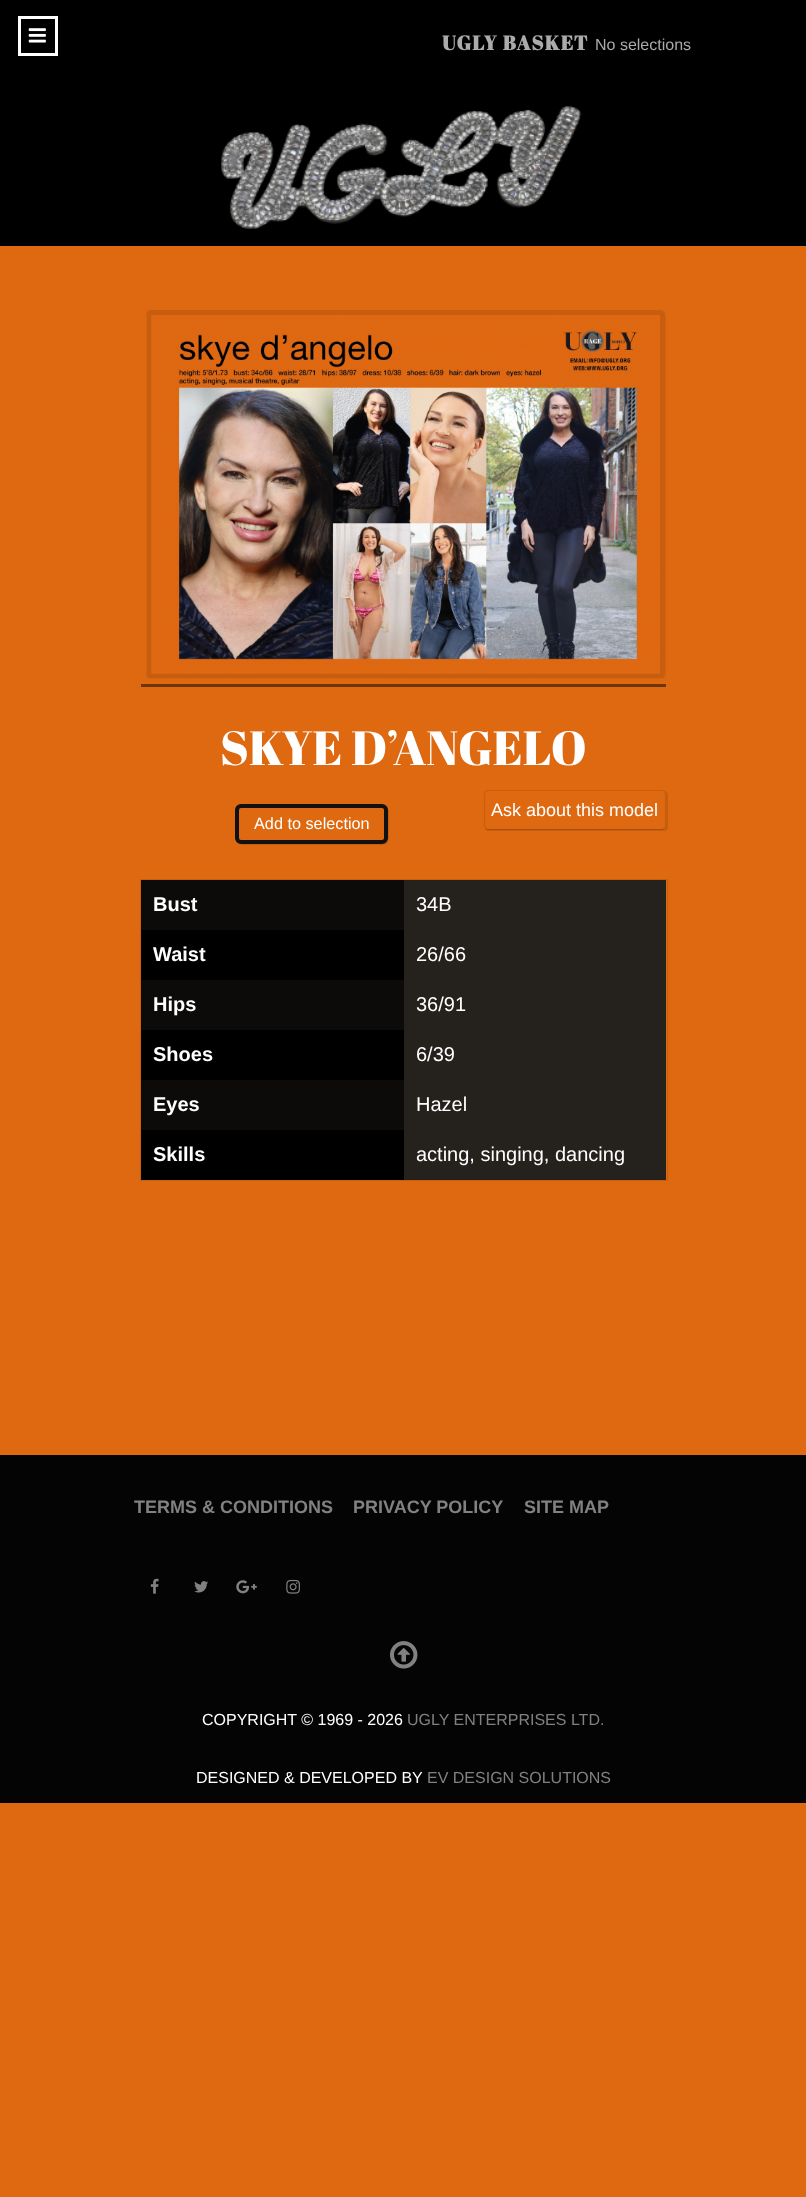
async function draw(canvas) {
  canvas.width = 806
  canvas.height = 2197
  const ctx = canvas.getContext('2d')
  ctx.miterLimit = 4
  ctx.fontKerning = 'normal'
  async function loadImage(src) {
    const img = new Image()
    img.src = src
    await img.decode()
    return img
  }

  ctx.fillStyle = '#de6911'
  ctx.fillRect(0, 0, 806, 2197)
  ctx.fillStyle = '#000'
  ctx.fillRect(0, 0, 806, 246)
  ctx.strokeStyle = '#fff'
  ctx.lineWidth = 3
  ctx.strokeRect(19.5, 17.5, 37, 37)
  ctx.drawImage(await loadImage('image0.png'), 28, 28, 18, 15)
  ctx.letterSpacing = '1.25px'
  ctx.font = 'bold 20px Abril Fatface'
  ctx.fillStyle = '#ababab'
  ctx.fillText('UGLY BASKET', 442, 50)
  ctx.letterSpacing = '0px'
  ctx.font = '16px Liberation Sans'
  ctx.fillText('No selections', 595, 50)
  ctx.drawImage(await loadImage('image1.png'), 221, 106, 361, 123)
  ctx.fillStyle = '#6f3509'
  ctx.fillRect(141, 684, 525, 3)
  ctx.save()
  ctx.beginPath()
  ctx.rect(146, 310, 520, 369)
  ctx.clip()
  ctx.beginPath()
  ctx.moveTo(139, 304)
  ctx.lineTo(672, 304)
  ctx.lineTo(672, 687)
  ctx.lineTo(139, 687)
  ctx.closePath()
  ctx.moveTo(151, 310)
  ctx.lineTo(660, 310)
  ctx.bezierCurveTo(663, 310, 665, 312, 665, 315)
  ctx.lineTo(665, 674)
  ctx.bezierCurveTo(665, 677, 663, 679, 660, 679)
  ctx.lineTo(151, 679)
  ctx.bezierCurveTo(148, 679, 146, 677, 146, 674)
  ctx.lineTo(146, 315)
  ctx.bezierCurveTo(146, 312, 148, 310, 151, 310)
  ctx.closePath()
  ctx.clip('evenodd')
  ctx.fillStyle = '#0000001a'
  ctx.filter = 'blur(2px)'
  ctx.beginPath()
  ctx.roundRect(146, 311, 519, 369, 5)
  ctx.fill()
  ctx.filter = 'none'
  ctx.restore()
  ctx.drawImage(await loadImage('image2.png'), 146, 310, 519, 369)
  ctx.drawImage(await loadImage('image3.png'), 151, 315, 509, 359)
  ctx.font = '48px Abril Fatface'
  ctx.fillStyle = '#fff'
  ctx.fillText('SKYE D’ANGELO', 220, 765)
  ctx.fillStyle = '#0000001a'
  ctx.filter = 'blur(0.5px)'
  ctx.beginPath()
  ctx.roundRect(485, 791, 183, 40, 4)
  ctx.fill()
  ctx.filter = 'none'
  ctx.fillStyle = '#de6911'
  ctx.beginPath()
  ctx.roundRect(484, 790, 182, 40, 4)
  ctx.fill()
  ctx.beginPath()
  ctx.moveTo(664.5, 828.5)
  ctx.lineTo(662.5, 829.5)
  ctx.lineTo(487.5, 829.5)
  ctx.lineTo(485.5, 828.5)
  ctx.strokeStyle = '#a64f0d'
  ctx.lineWidth = 1.2
  ctx.stroke()
  ctx.beginPath()
  ctx.moveTo(485.5, 828.5)
  ctx.lineTo(484.5, 826)
  ctx.lineTo(484.5, 794)
  ctx.lineTo(485.5, 791.5)
  ctx.lineTo(487.5, 790.5)
  ctx.lineTo(662.5, 790.5)
  ctx.lineTo(664.5, 791.5)
  ctx.lineTo(665.5, 794)
  ctx.lineTo(665.5, 826)
  ctx.lineTo(664.5, 828.5)
  ctx.strokeStyle = '#c85e0f'
  ctx.stroke()
  ctx.font = '18px Liberation Sans'
  ctx.fillStyle = '#fff'
  ctx.fillText('Ask about this model', 491, 816)
  ctx.fillStyle = '#0000001a'
  ctx.filter = 'blur(0.5px)'
  ctx.beginPath()
  ctx.roundRect(236, 805, 153, 40, 6)
  ctx.fill()
  ctx.filter = 'none'
  ctx.fillStyle = '#de6911'
  ctx.beginPath()
  ctx.roundRect(237, 806, 149, 36, 4)
  ctx.fill()
  ctx.strokeStyle = '#111'
  ctx.lineWidth = 4
  ctx.stroke()
  ctx.font = '16.25px Liberation Sans'
  ctx.fillStyle = '#fff'
  ctx.fillText('Add to selection', 254, 829)
  ctx.strokeStyle = '#c85f0f'
  ctx.lineWidth = 1
  ctx.strokeRect(140.5, 879.5, 527, 301)
  ctx.fillStyle = '#0c0b0a'
  ctx.fillRect(141, 880, 263, 50)
  ctx.font = 'bold 20px Liberation Sans'
  ctx.fillStyle = '#fff'
  ctx.fillText('Bust', 153, 911)
  ctx.fillStyle = '#25211d'
  ctx.fillRect(404, 880, 262, 300)
  ctx.font = '20px Liberation Sans'
  ctx.fillStyle = '#fff'
  ctx.fillText('34B', 416, 911)
  ctx.fillStyle = '#000'
  ctx.fillRect(141, 930, 263, 50)
  ctx.font = 'bold 20px Liberation Sans'
  ctx.fillStyle = '#fff'
  ctx.fillText('Waist', 153, 961)
  ctx.font = '20px Liberation Sans'
  ctx.fillText('26/66', 416, 961)
  ctx.fillStyle = '#0c0b0a'
  ctx.fillRect(141, 980, 263, 50)
  ctx.font = 'bold 20px Liberation Sans'
  ctx.fillStyle = '#fff'
  ctx.fillText('Hips', 153, 1011)
  ctx.font = '20px Liberation Sans'
  ctx.fillText('36/91', 416, 1011)
  ctx.fillStyle = '#000'
  ctx.fillRect(141, 1030, 263, 50)
  ctx.font = 'bold 20px Liberation Sans'
  ctx.fillStyle = '#fff'
  ctx.fillText('Shoes', 153, 1061)
  ctx.font = '20px Liberation Sans'
  ctx.fillText('6/39', 416, 1061)
  ctx.fillStyle = '#0c0b0a'
  ctx.fillRect(141, 1080, 263, 50)
  ctx.font = 'bold 20px Liberation Sans'
  ctx.fillStyle = '#fff'
  ctx.fillText('Eyes', 153, 1111)
  ctx.font = '20px Liberation Sans'
  ctx.fillText('Hazel', 416, 1111)
  ctx.fillStyle = '#000'
  ctx.fillRect(141, 1130, 263, 50)
  ctx.font = 'bold 20px Liberation Sans'
  ctx.fillStyle = '#fff'
  ctx.fillText('Skills', 153, 1161)
  ctx.font = '20px Liberation Sans'
  ctx.fillText('acting, singing, dancing', 416, 1161)
  ctx.fillStyle = '#040404'
  ctx.fillRect(0, 1455, 806, 348)
  ctx.font = 'bold 18px Liberation Sans'
  ctx.fillStyle = '#818181'
  ctx.fillText('TERMS & CONDITIONS', 134, 1513)
  ctx.fillText('PRIVACY POLICY', 353, 1513)
  ctx.fillText('SITE MAP', 524, 1513)
  ctx.drawImage(await loadImage('image4.png'), 150, 1578, 9, 16)
  ctx.drawImage(await loadImage('image5.png'), 194, 1581, 14, 12)
  ctx.drawImage(await loadImage('image6.png'), 236, 1580, 21, 14)
  ctx.drawImage(await loadImage('image7.png'), 286, 1579, 14, 15)
  ctx.drawImage(await loadImage('image8.png'), 390, 1641, 28, 28)
  ctx.font = '16px Liberation Sans'
  ctx.fillStyle = '#fff'
  ctx.fillText('COPYRIGHT © 1969 - 2026', 202, 1725)
  ctx.fillStyle = '#818181'
  ctx.fillText('UGLY ENTERPRISES LTD.', 407, 1725)
  ctx.fillStyle = '#fff'
  ctx.fillText('DESIGNED & DEVELOPED BY', 196, 1783)
  ctx.fillStyle = '#818181'
  ctx.fillText('EV DESIGN SOLUTIONS', 427, 1783)
}

draw(document.querySelector('canvas'))
